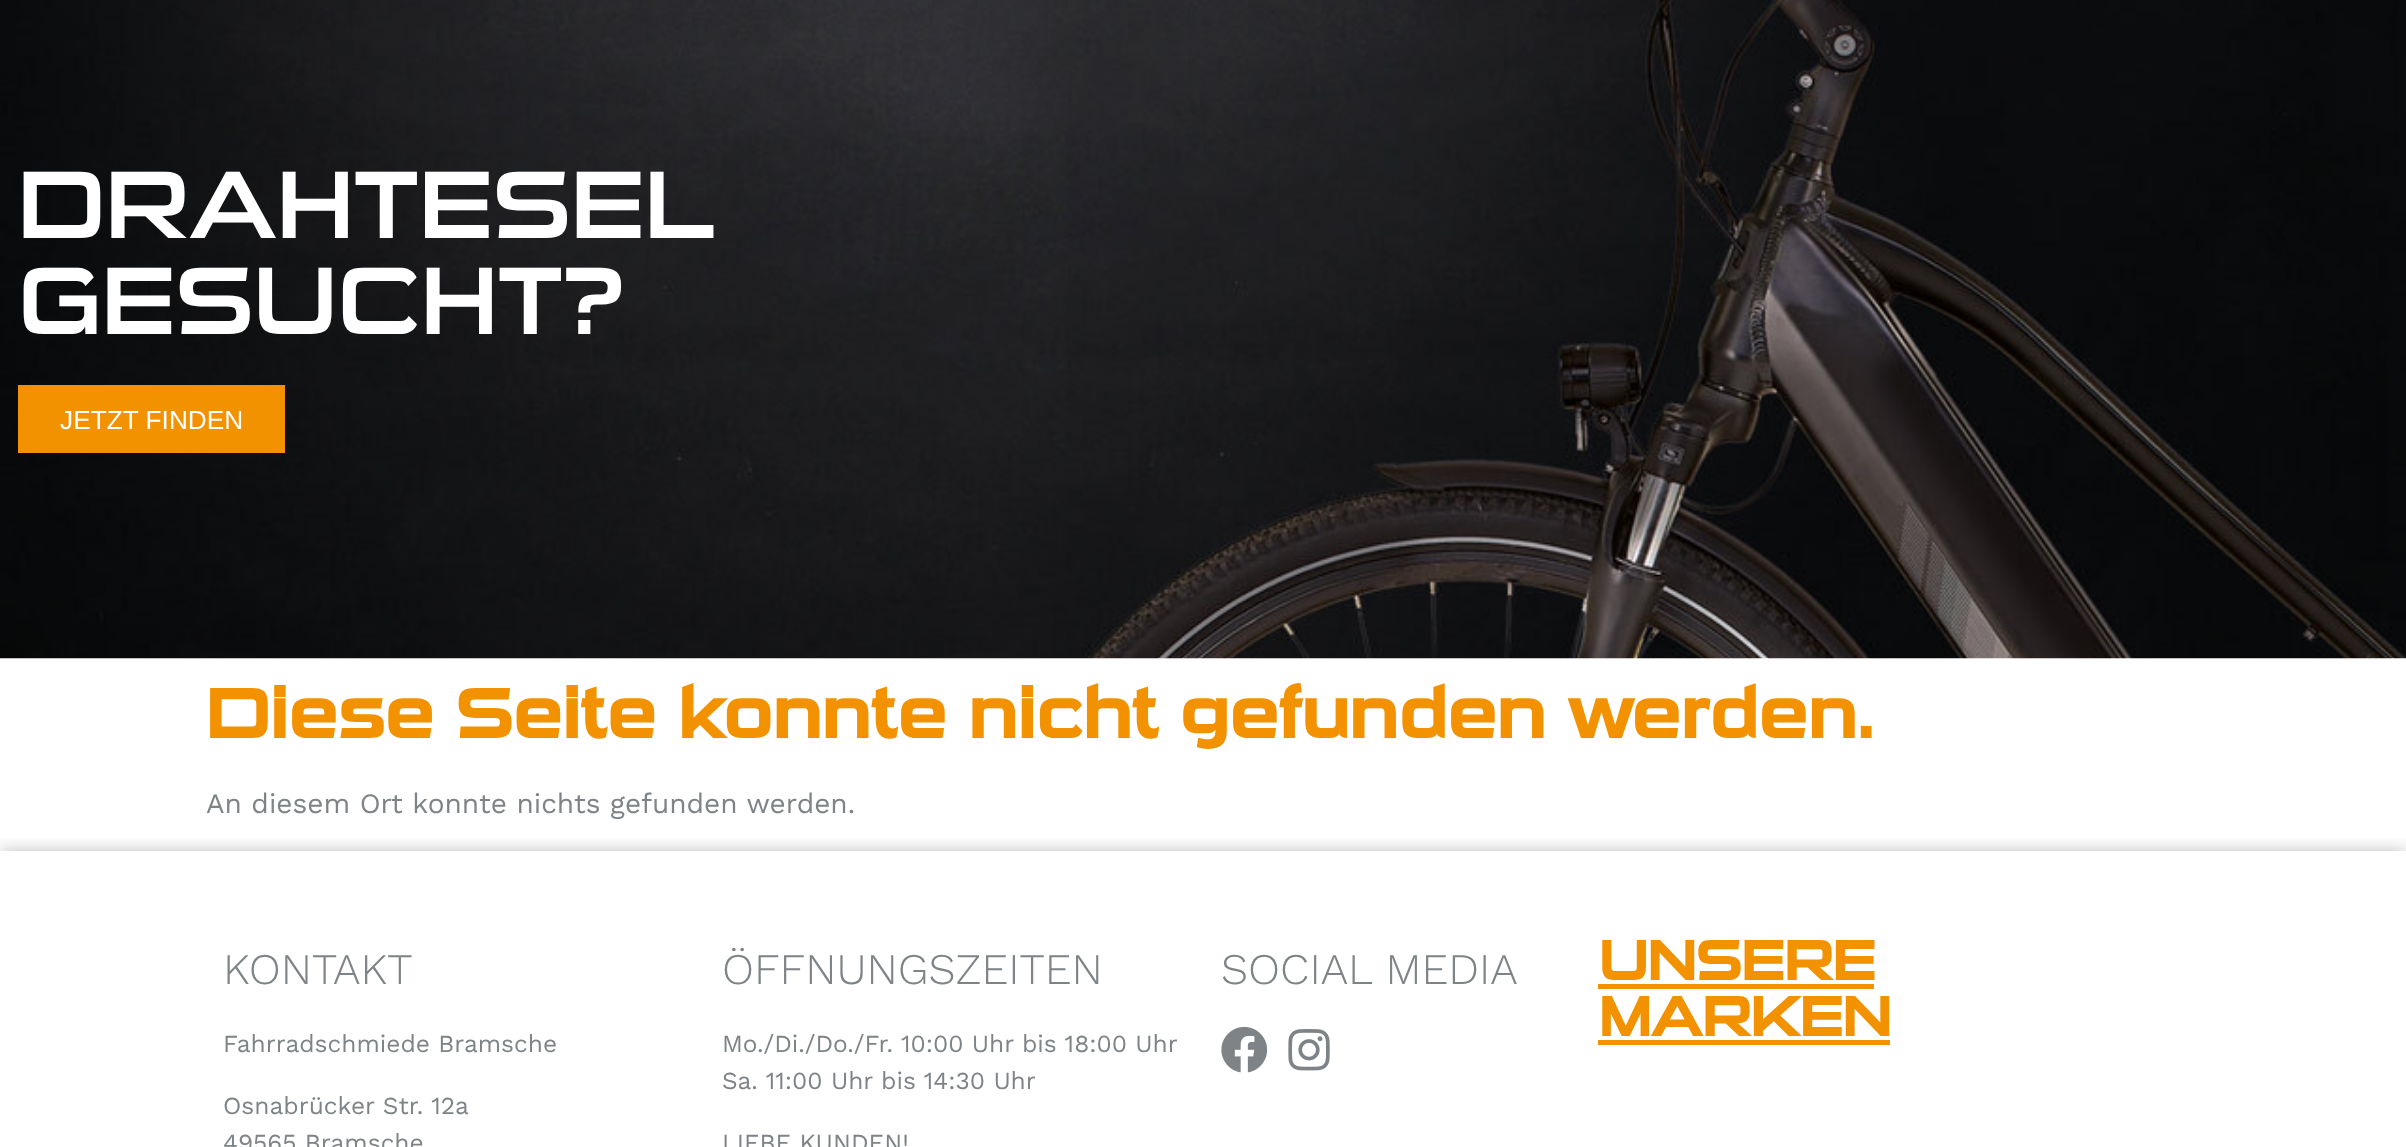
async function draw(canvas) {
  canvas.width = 2406
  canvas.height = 1147
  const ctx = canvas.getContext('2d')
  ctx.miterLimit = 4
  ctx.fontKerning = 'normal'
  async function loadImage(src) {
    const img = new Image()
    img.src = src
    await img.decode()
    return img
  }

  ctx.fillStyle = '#fff'
  ctx.fillRect(0, 0, 2406, 1147)
  ctx.drawImage(await loadImage('image0.png'), 0, 0, 2406, 659)
  ctx.font = '96.25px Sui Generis'
  ctx.fillText('DRAHTESEL', 18, 238)
  ctx.fillText('GESUCHT?', 18, 334)
  ctx.fillStyle = '#f39200'
  ctx.fillRect(18, 385, 267, 68)
  ctx.font = '26.25px Liberation Sans'
  ctx.fillStyle = '#fff'
  ctx.fillText('JETZT FINDEN', 60, 429)
  ctx.font = 'bold 70px Sui Generis'
  ctx.fillStyle = '#f39200'
  ctx.fillText('Diese Seite konnte nicht gefunden werden.', 206, 738)
  ctx.font = '28px Work Sans'
  ctx.fillStyle = '#7d8386'
  ctx.fillText('An diesem Ort konnte nichts gefunden werden.', 206, 813)
  ctx.save()
  ctx.beginPath()
  ctx.rect(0, 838, 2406, 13)
  ctx.clip()
  ctx.fillStyle = '#00000042'
  ctx.filter = 'blur(9px)'
  ctx.beginPath()
  ctx.rect(0, 851, 2406, 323)
  ctx.fill()
  ctx.filter = 'none'
  ctx.restore()
  ctx.font = '300 43.75px Work Sans'
  ctx.fillText('KONTAKT', 223, 984)
  ctx.font = '24.5px Work Sans'
  ctx.fillText('Fahrradschmiede Bramsche', 223, 1052)
  ctx.fillText('Osnabrücker Str. 12a', 223, 1114)
  ctx.fillText('49565 Bramsche', 223, 1151)
  ctx.font = '300 43.75px Work Sans'
  ctx.fillText('ÖFFNUNGSZEITEN', 722, 984)
  ctx.font = '24.5px Work Sans'
  ctx.fillText('Mo./Di./Do./Fr. 10:00 Uhr bis 18:00 Uhr', 722, 1052)
  ctx.fillText('Sa. 11:00 Uhr bis 14:30 Uhr', 722, 1089)
  ctx.fillText('LIEBE KUNDEN!', 722, 1151)
  ctx.font = '300 43.75px Work Sans'
  ctx.fillText('SOCIAL MEDIA', 1221, 984)
  ctx.drawImage(await loadImage('image1.png'), 1221, 1026, 47, 47)
  ctx.drawImage(await loadImage('image2.png'), 1288, 1029, 42, 42)
  ctx.font = 'bold 56px Sui Generis'
  ctx.fillStyle = '#f39200'
  ctx.fillText('UNSERE', 1599, 980)
  ctx.fillRect(1598, 984, 276, 5)
  ctx.fillText('MARKEN', 1599, 1036)
  ctx.fillRect(1598, 1040, 292, 5)
}

draw(document.querySelector('canvas'))
